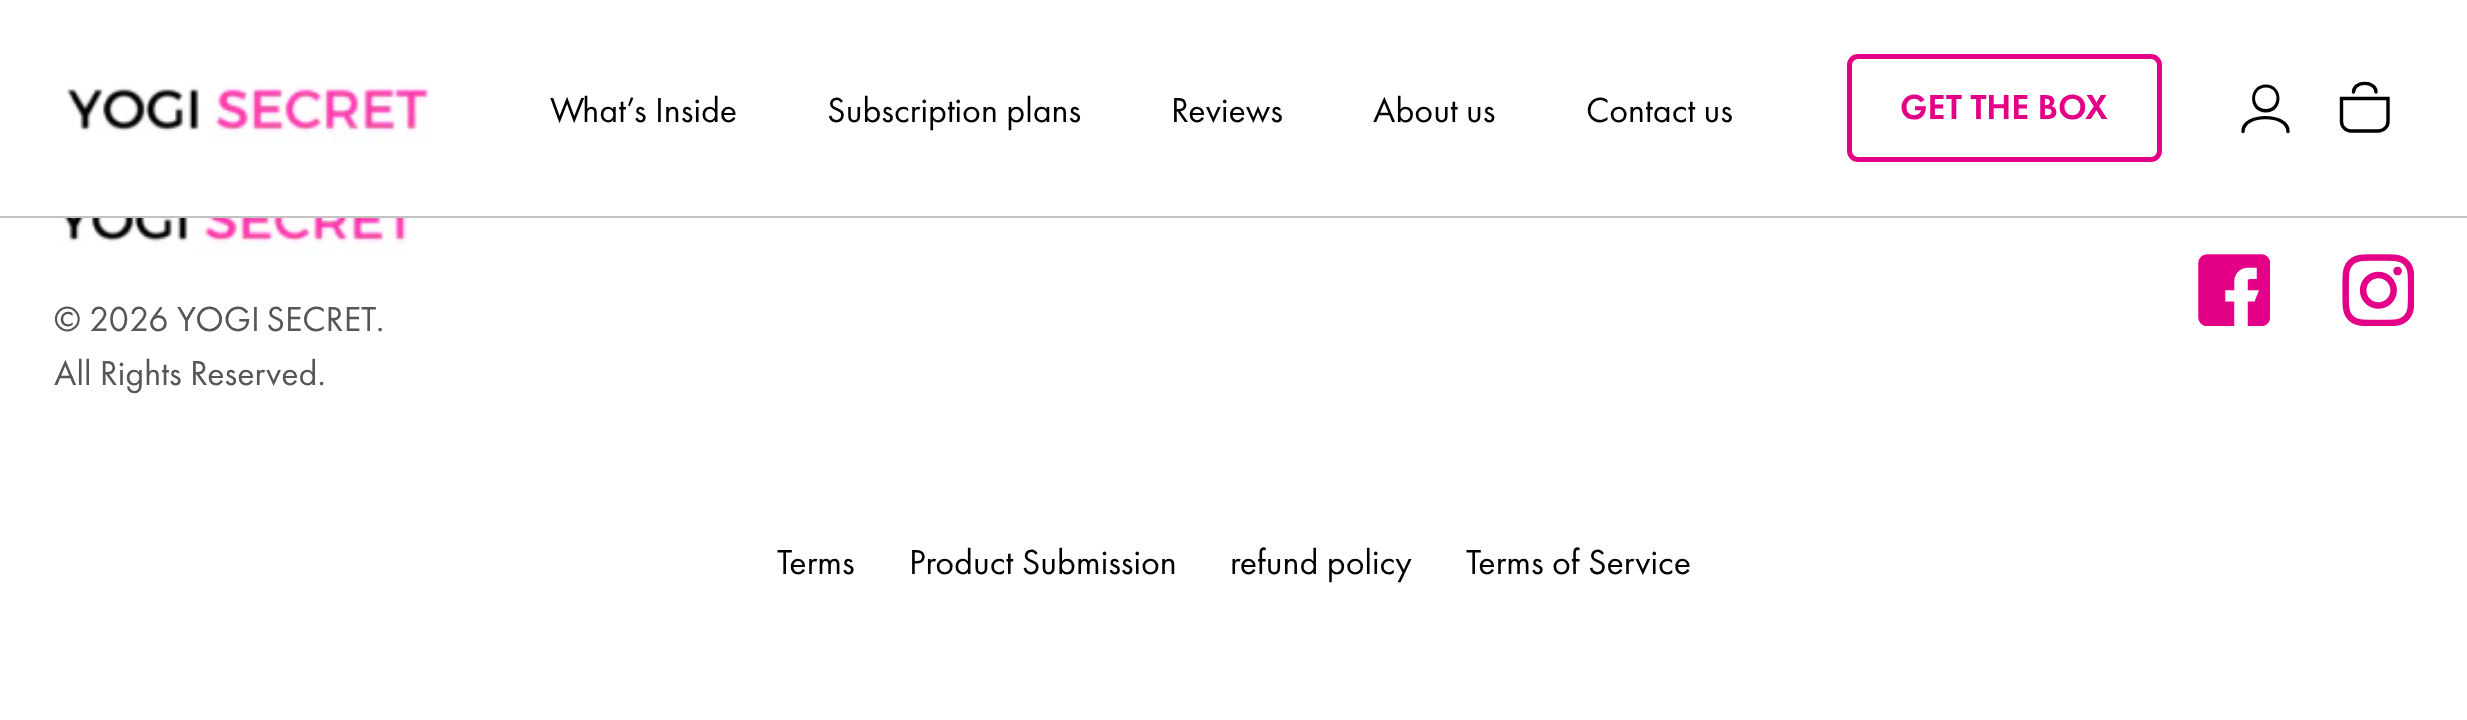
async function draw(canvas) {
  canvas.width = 2467
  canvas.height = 720
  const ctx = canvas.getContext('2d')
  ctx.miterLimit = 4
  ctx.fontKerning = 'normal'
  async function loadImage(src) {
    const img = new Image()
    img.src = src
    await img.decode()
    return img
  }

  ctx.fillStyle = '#fff'
  ctx.fillRect(0, 0, 2467, 720)
  ctx.fillStyle = '#c2c2c2'
  ctx.fillRect(0, 216, 2467, 2)
  ctx.drawImage(await loadImage('image0.png'), 66, 85, 366, 59)
  ctx.font = '36px Futura PT'
  ctx.fillStyle = '#000'
  ctx.fillText('What’s Inside', 550, 122)
  ctx.fillText('Subscription plans', 827, 122)
  ctx.fillText('Reviews', 1171, 122)
  ctx.fillText('About us', 1373, 122)
  ctx.fillText('Contact us', 1586, 122)
  ctx.beginPath()
  ctx.roundRect(1849.5, 56.5, 310, 103, 8.5)
  ctx.strokeStyle = '#e30086'
  ctx.lineWidth = 5
  ctx.stroke()
  ctx.font = '500 36px Futura PT'
  ctx.fillStyle = '#e30086'
  ctx.fillText('GET THE BOX', 1900, 119)
  ctx.fillStyle = '#000'
  ctx.beginPath()
  ctx.moveTo(2266, 112.5)
  ctx.bezierCurveTo(2284, 112.5, 2284, 84.5, 2266, 84.5)
  ctx.bezierCurveTo(2247.5, 84.5, 2247.5, 112.5, 2266, 112.5)
  ctx.closePath()
  ctx.moveTo(2266, 109)
  ctx.bezierCurveTo(2280, 109, 2280, 87.5, 2266, 87.5)
  ctx.bezierCurveTo(2251.5, 87.5, 2251.5, 109, 2266, 109)
  ctx.closePath()
  ctx.fill('evenodd')
  ctx.beginPath()
  ctx.moveTo(2288, 131.5)
  ctx.bezierCurveTo(2288, 113, 2243, 113, 2243, 131.5)
  ctx.strokeStyle = '#000'
  ctx.lineWidth = 3.4
  ctx.lineCap = 'round'
  ctx.stroke()
  ctx.beginPath()
  ctx.moveTo(2341.5, 98.5)
  ctx.lineTo(2388, 98.5)
  ctx.lineTo(2388, 121.5)
  ctx.bezierCurveTo(2388, 127, 2383.5, 131, 2378, 131)
  ctx.lineTo(2351, 131)
  ctx.bezierCurveTo(2346, 131, 2341.5, 127, 2341.5, 121.5)
  ctx.closePath()
  ctx.lineCap = 'butt'
  ctx.stroke()
  ctx.beginPath()
  ctx.moveTo(2376, 92)
  ctx.bezierCurveTo(2376, 80.5, 2353.5, 80.5, 2353.5, 92)
  ctx.lineCap = 'round'
  ctx.stroke()
  ctx.drawImage(await loadImage('image1.png'), 2198, 254, 72, 72)
  ctx.drawImage(await loadImage('image2.png'), 2342, 254, 72, 72)
  ctx.drawImage(await loadImage('image3.png'), 55, 218, 364, 36)
  ctx.font = '36px Futura PT'
  ctx.fillStyle = '#565656'
  ctx.fillText('© 2026', 54, 331)
  ctx.wordSpacing = '-2px'
  ctx.fillText('YOGI SECRET', 177, 331)
  ctx.wordSpacing = '0px'
  ctx.fillText('.', 376, 331)
  ctx.fillText('All Rights Reserved.', 54, 385)
  ctx.fillStyle = '#000'
  ctx.fillText('Terms', 777, 574)
  ctx.fillText('Product Submission', 909, 574)
  ctx.fillText('refund policy', 1230, 574)
  ctx.fillText('Terms of Service', 1466, 574)
}

draw(document.querySelector('canvas'))
